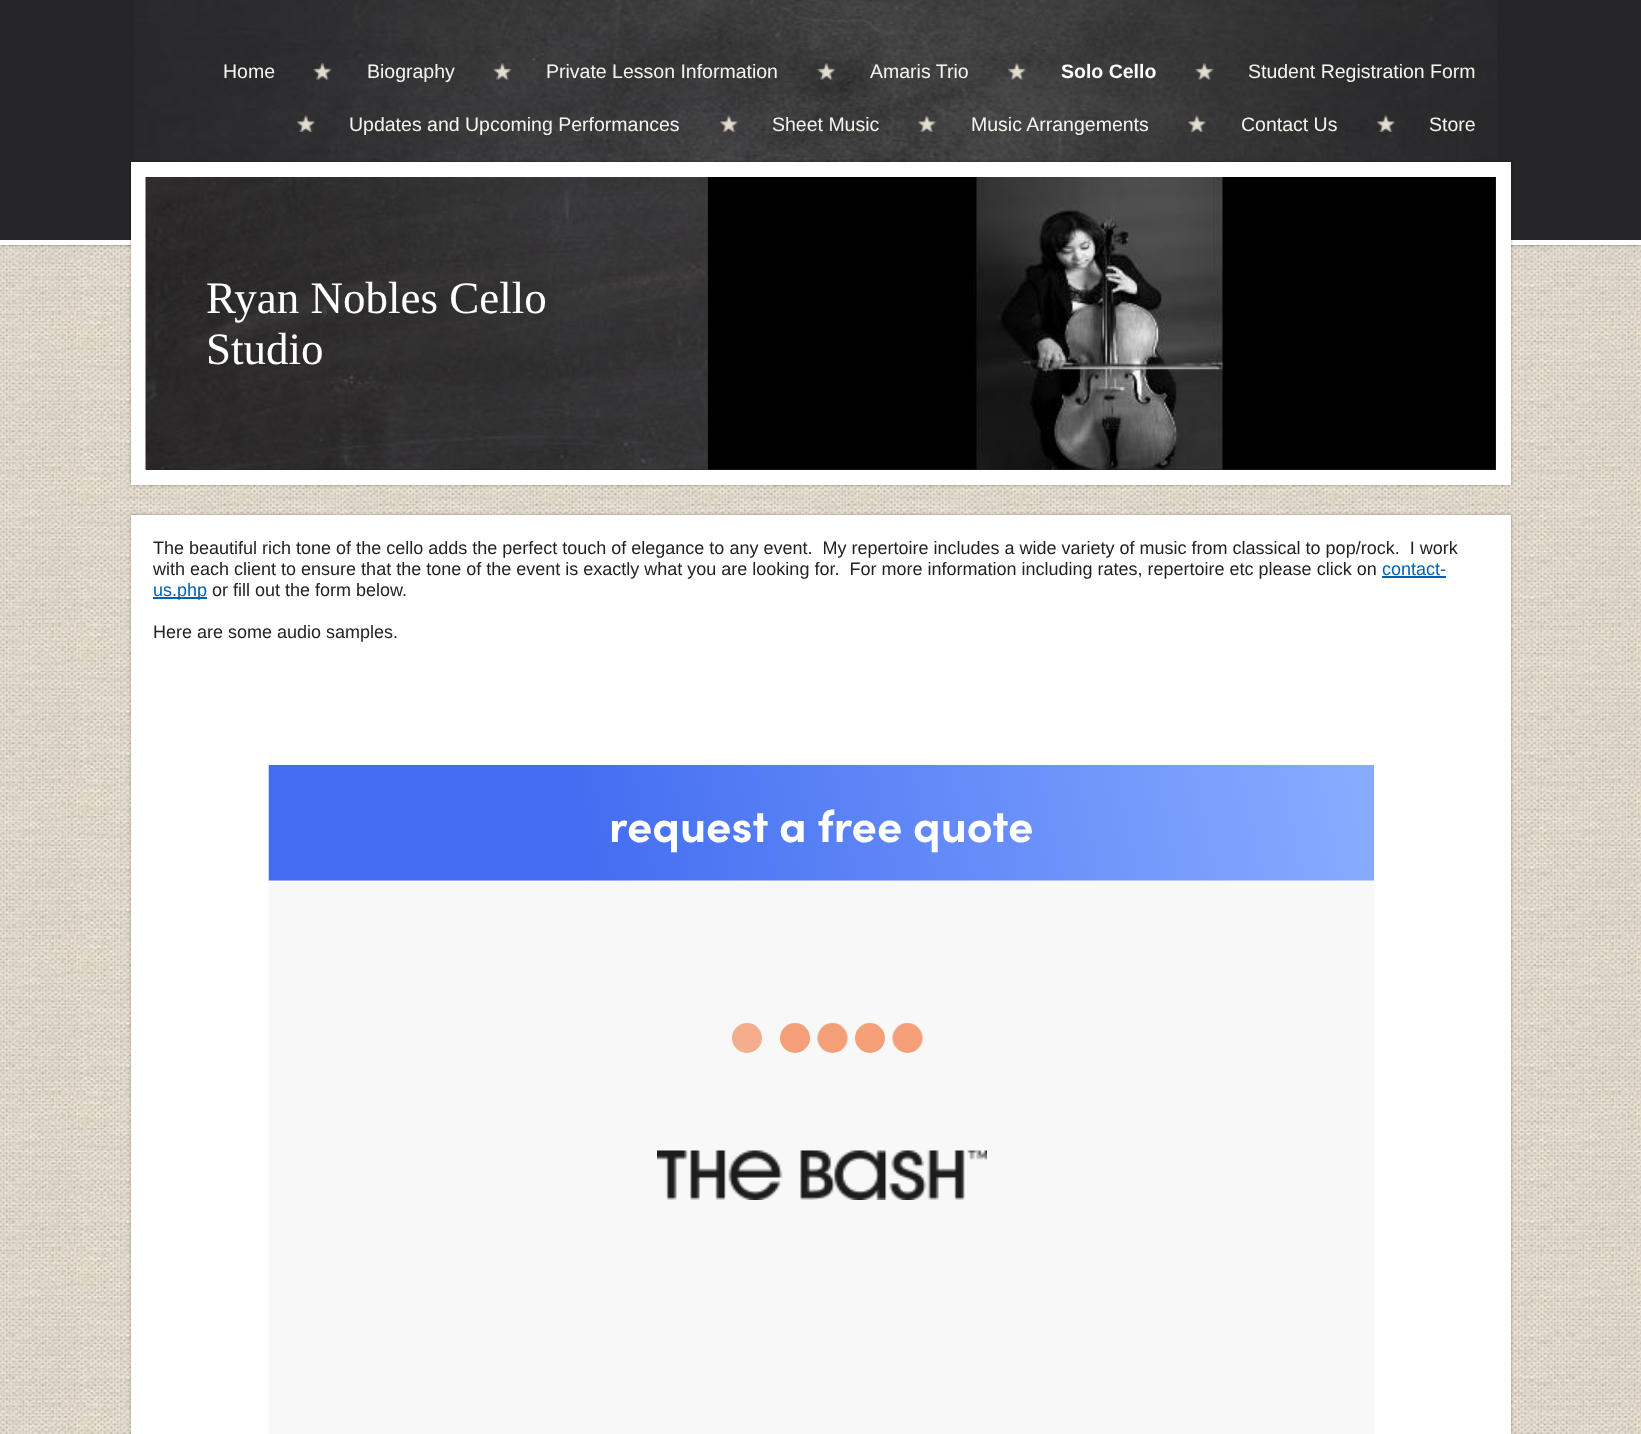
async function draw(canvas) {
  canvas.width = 1641
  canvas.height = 1434
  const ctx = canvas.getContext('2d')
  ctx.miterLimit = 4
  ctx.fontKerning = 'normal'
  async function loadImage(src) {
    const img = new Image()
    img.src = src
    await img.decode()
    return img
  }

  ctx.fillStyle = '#fff'
  ctx.fillRect(0, 0, 1641, 1434)
  ctx.drawImage(await loadImage('image0.png'), 0, 245, 1641, 1189)
  ctx.fillStyle = '#00000073'
  ctx.filter = 'blur(1.5px)'
  ctx.beginPath()
  ctx.rect(0, 0, 1641, 245)
  ctx.fill()
  ctx.filter = 'none'
  ctx.fillStyle = '#262628'
  ctx.fillRect(0, 0, 1641, 240)
  ctx.drawImage(await loadImage('image1.png'), 135, 0, 1362, 162)
  ctx.fillStyle = '#fff'
  ctx.fillRect(0, 240, 1641, 5)
  ctx.font = '19.5px Liberation Sans'
  ctx.fillStyle = '#f6f4ee'
  ctx.fillText('Home', 223, 78)
  ctx.drawImage(await loadImage('image2.png'), 313, 63, 19, 17)
  ctx.fillText('Biography', 367, 78)
  ctx.drawImage(await loadImage('image3.png'), 493, 63, 19, 17)
  ctx.fillText('Private Lesson Information', 546, 78)
  ctx.drawImage(await loadImage('image4.png'), 817, 63, 19, 17)
  ctx.fillText('Amaris Trio', 870, 78)
  ctx.drawImage(await loadImage('image5.png'), 1008, 63, 18, 17)
  ctx.font = 'bold 19.5px Liberation Sans'
  ctx.fillStyle = '#fff'
  ctx.fillText('Solo Cello', 1061, 78)
  ctx.drawImage(await loadImage('image6.png'), 1195, 63, 19, 17)
  ctx.font = '19.5px Liberation Sans'
  ctx.fillStyle = '#f6f4ee'
  ctx.fillText('Student Registration Form', 1248, 78)
  ctx.drawImage(await loadImage('image7.png'), 297, 115, 18, 17)
  ctx.fillText('Updates and Upcoming Performances', 349, 131)
  ctx.drawImage(await loadImage('image8.png'), 720, 115, 18, 17)
  ctx.fillText('Sheet Music', 772, 131)
  ctx.drawImage(await loadImage('image9.png'), 918, 115, 18, 17)
  ctx.fillText('Music Arrangements', 971, 131)
  ctx.drawImage(await loadImage('image10.png'), 1188, 115, 18, 17)
  ctx.fillText('Contact Us', 1241, 131)
  ctx.drawImage(await loadImage('image11.png'), 1377, 115, 18, 17)
  ctx.fillText('Store', 1429, 131)
  ctx.fillStyle = '#00000059'
  ctx.filter = 'blur(1.5px)'
  ctx.beginPath()
  ctx.rect(131, 162, 1380, 323)
  ctx.fill()
  ctx.filter = 'none'
  ctx.fillStyle = '#fff'
  ctx.fillRect(131, 162, 1380, 323)
  ctx.fillStyle = '#262628'
  ctx.fillRect(146, 177, 1350, 293)
  ctx.drawImage(await loadImage('image12.png'), 145, 177, 562, 293)
  ctx.fillStyle = '#333'
  ctx.fillRect(707, 177, 2, 293)
  ctx.font = '45px Liberation Serif'
  ctx.fillStyle = '#fff'
  ctx.fillText('Ryan Nobles Cello', 206, 313)
  ctx.fillText('Studio', 206, 364)
  ctx.drawImage(await loadImage('image13.png'), 708, 177, 788, 293)
  ctx.fillStyle = '#00000059'
  ctx.filter = 'blur(1.5px)'
  ctx.beginPath()
  ctx.rect(131, 515, 1380, 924)
  ctx.fill()
  ctx.filter = 'none'
  ctx.fillStyle = '#fff'
  ctx.fillRect(131, 515, 1380, 919)
  ctx.font = '18px Liberation Sans'
  ctx.fillStyle = '#222'
  ctx.fillText('The beautiful rich tone of the cello adds the perfect touch of elegance to any event.  My repertoire includes a wide variety of music from classical to pop/rock.  I work', 153, 554)
  ctx.fillText('with each client to ensure that the tone of the event is exactly what you are looking for.  For more information including rates, repertoire etc please click on', 153, 575)
  ctx.fillStyle = '#0062b5'
  ctx.fillText('contact-', 1382, 575)
  ctx.fillRect(1382, 576, 64, 2)
  ctx.fillRect(153, 597, 54, 2)
  ctx.fillText('us.php', 153, 596)
  ctx.fillStyle = '#222'
  ctx.fillText('or fill out the form below.', 212, 596)
  ctx.fillText('Here are some audio samples.', 153, 638)
  ctx.drawImage(await loadImage('image14.png'), 268, 765, 1106, 669)
}

draw(document.querySelector('canvas'))
